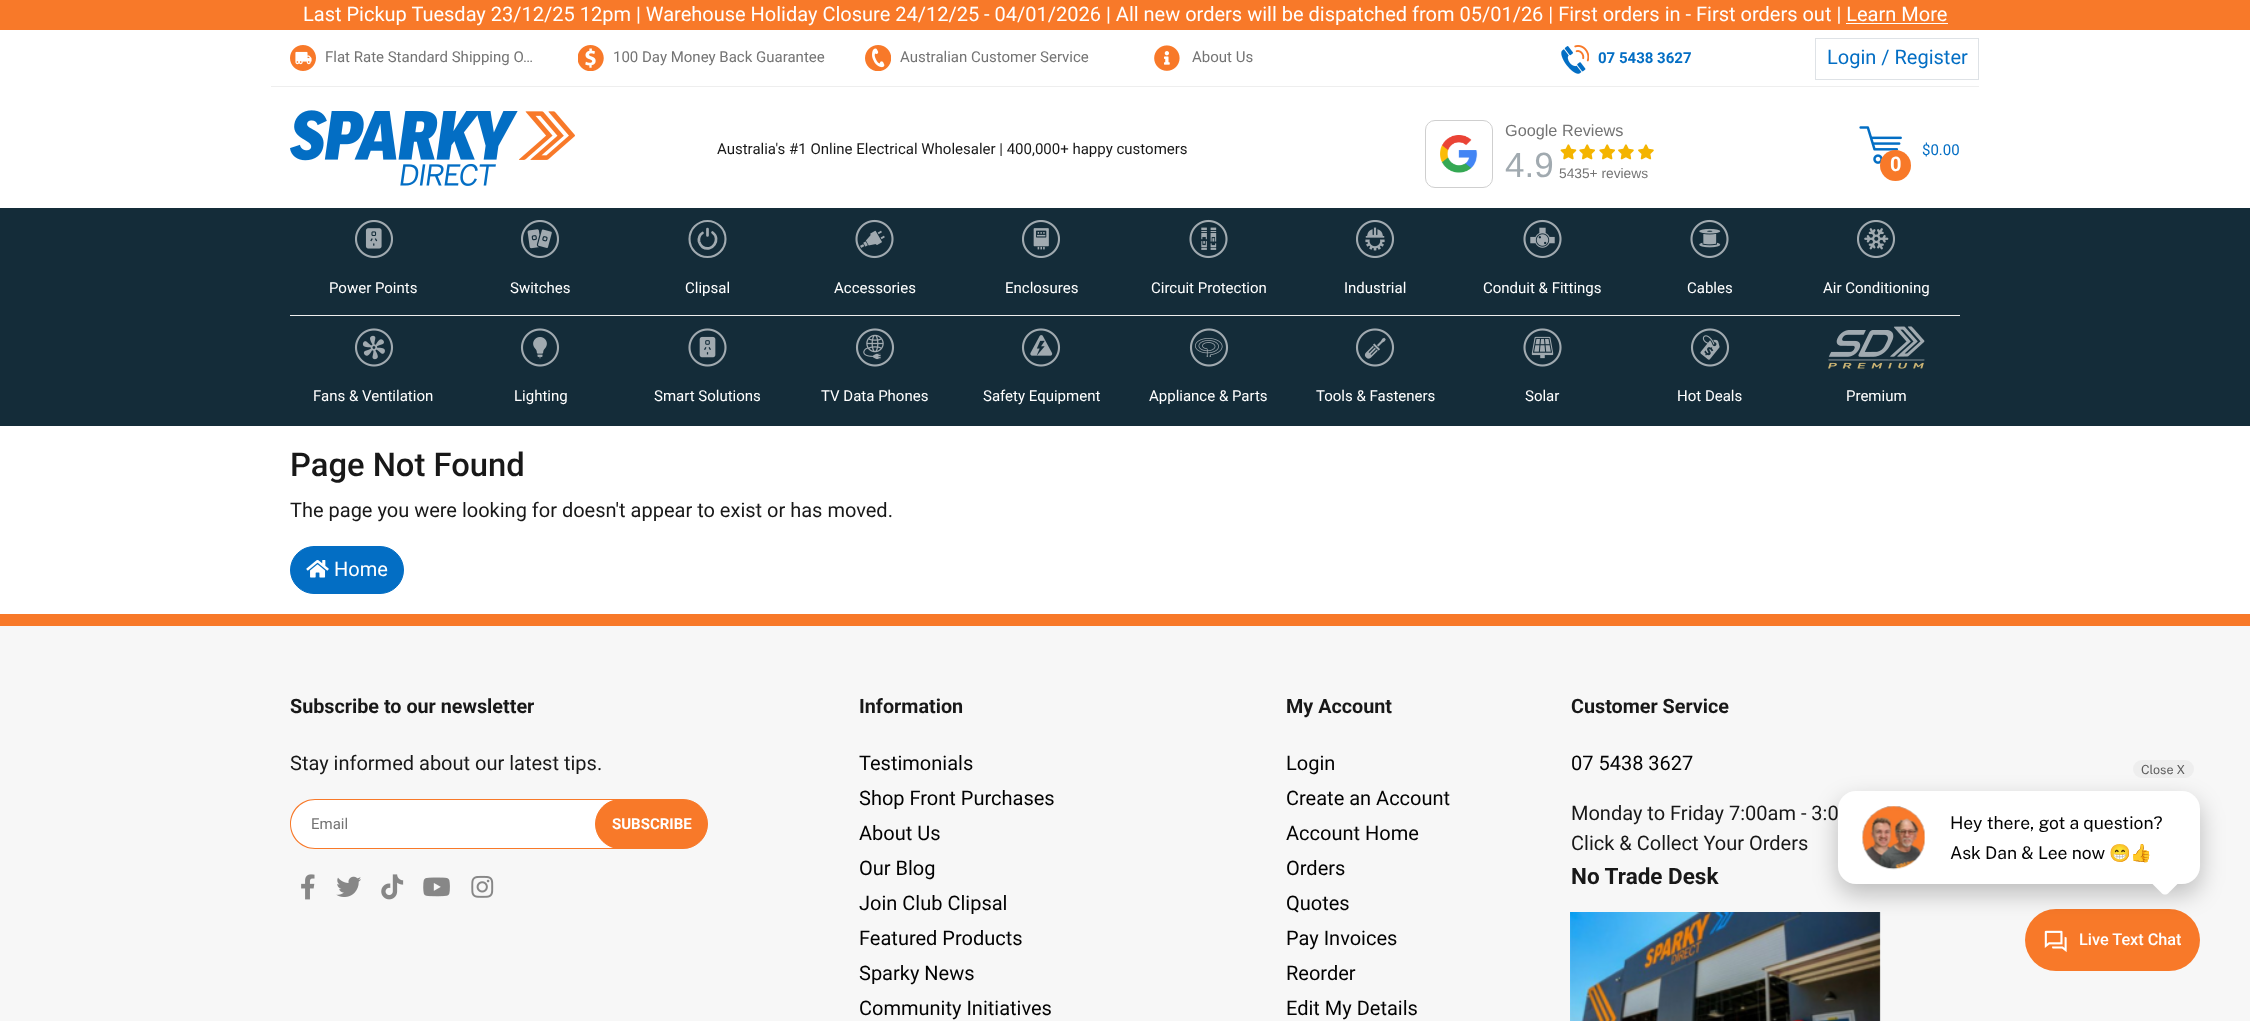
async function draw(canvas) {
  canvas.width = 2250
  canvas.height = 1021
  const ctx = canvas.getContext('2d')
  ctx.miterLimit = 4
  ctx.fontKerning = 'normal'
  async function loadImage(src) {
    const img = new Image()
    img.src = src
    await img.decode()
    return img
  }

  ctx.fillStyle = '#fff'
  ctx.fillRect(0, 0, 2250, 1021)
  ctx.fillStyle = '#f87929'
  ctx.fillRect(0, 0, 2250, 30)
  ctx.font = '20px Roboto'
  ctx.fillStyle = '#fff'
  ctx.fillText('Last Pickup Tuesday 23/12/25 12pm | Warehouse Holiday Closure 24/12/25 - 04/01/2026 | All new orders will be dispatched from 05/01/26 | First orders in - First orders out | Learn More', 303, 21)
  ctx.fillRect(1846, 23, 102, 1)
  ctx.fillStyle = '#eee'
  ctx.fillRect(271, 86, 1708, 1)
  ctx.drawImage(await loadImage('image0.png'), 290, 45, 26, 26)
  ctx.font = '15px Roboto'
  ctx.fillStyle = '#747474'
  ctx.fillText('Flat Rate Standard Shipping O…', 325, 62)
  ctx.drawImage(await loadImage('image1.png'), 578, 45, 26, 26)
  ctx.fillText('100 Day Money Back Guarantee', 613, 62)
  ctx.drawImage(await loadImage('image2.png'), 865, 45, 26, 26)
  ctx.fillText('Australian Customer Service', 900, 62)
  ctx.drawImage(await loadImage('image3.png'), 1154, 45, 26, 26)
  ctx.fillText('About Us', 1192, 62)
  ctx.drawImage(await loadImage('image4.png'), 1561, 45, 28, 29)
  ctx.font = 'bold 15px Roboto'
  ctx.fillStyle = '#036ec4'
  ctx.fillText('07 5438 3627', 1598, 63)
  ctx.strokeStyle = '#dee2e6'
  ctx.strokeRect(1815.5, 38.5, 163, 41)
  ctx.font = '20px Roboto'
  ctx.fillText('Login / Register', 1827, 64)
  ctx.drawImage(await loadImage('image5.png'), 290, 110, 285, 76)
  ctx.font = '15px Roboto'
  ctx.fillStyle = '#181818'
  ctx.fillText('Australia\'s #1 Online Electrical Wholesaler | 400,000+ happy customers', 717, 154)
  ctx.beginPath()
  ctx.roundRect(1425.5, 120.5, 67, 67, 9.5)
  ctx.strokeStyle = '#cfcfcf'
  ctx.stroke()
  ctx.drawImage(await loadImage('image6.png'), 1440, 135, 38, 38)
  ctx.font = '16.25px Liberation Sans'
  ctx.fillStyle = '#747474'
  ctx.fillText('Google Reviews', 1505, 136)
  ctx.font = '35px Liberation Sans'
  ctx.fillStyle = '#a1aab0'
  ctx.fillText('4.9', 1505, 177)
  ctx.drawImage(await loadImage('image7.png'), 1560, 144, 17, 16)
  ctx.drawImage(await loadImage('image8.png'), 1579, 144, 16, 16)
  ctx.drawImage(await loadImage('image8.png'), 1599, 144, 16, 16)
  ctx.drawImage(await loadImage('image9.png'), 1618, 144, 16, 16)
  ctx.drawImage(await loadImage('image9.png'), 1638, 144, 16, 16)
  ctx.font = '13.75px Liberation Sans'
  ctx.fillStyle = '#747474'
  ctx.fillText('5435+ reviews', 1559, 178)
  ctx.font = '15px Roboto'
  ctx.fillStyle = '#036ec4'
  ctx.fillText('$0.00', 1922, 155)
  ctx.drawImage(await loadImage('image10.png'), 1859, 126, 43, 38)
  ctx.fillStyle = '#f87929'
  ctx.beginPath()
  ctx.arc(1895.5, 165.5, 15.5, 0, 2 * Math.PI)
  ctx.fill()
  ctx.font = 'bold 20px Roboto'
  ctx.fillStyle = '#fff'
  ctx.fillText('0', 1890, 171)
  ctx.fillStyle = '#142c39'
  ctx.fillRect(0, 208, 2250, 218)
  ctx.fillStyle = '#eee'
  ctx.fillRect(290, 315, 1670, 1)
  ctx.drawImage(await loadImage('image11.png'), 355, 220, 38, 38)
  ctx.font = '15px Roboto'
  ctx.fillStyle = '#fff'
  ctx.fillText('Power Points', 329, 293)
  ctx.drawImage(await loadImage('image12.png'), 521, 220, 38, 38)
  ctx.fillText('Switches', 510, 293)
  ctx.beginPath()
  ctx.arc(707.5, 239, 18, 0, 2 * Math.PI)
  ctx.strokeStyle = '#a1aab0'
  ctx.lineWidth = 2.1
  ctx.stroke()
  ctx.beginPath()
  ctx.moveTo(712.5, 232.5)
  ctx.bezierCurveTo(721.5, 239, 712, 253, 702.5, 247)
  ctx.bezierCurveTo(701, 245.5, 699.5, 243.5, 699, 241.5)
  ctx.bezierCurveTo(698.5, 238, 699.5, 235, 702.5, 233)
  ctx.moveTo(707.5, 229)
  ctx.lineTo(707.5, 235.5)
  ctx.lineWidth = 2.7
  ctx.lineCap = 'round'
  ctx.stroke()
  ctx.fillText('Clipsal', 685, 293)
  ctx.drawImage(await loadImage('image13.png'), 855, 219, 39, 40)
  ctx.fillText('Accessories', 834, 293)
  ctx.drawImage(await loadImage('image14.png'), 1022, 220, 38, 38)
  ctx.fillText('Enclosures', 1005, 293)
  ctx.drawImage(await loadImage('image15.png'), 1189, 219, 39, 40)
  ctx.fillText('Circuit Protection', 1151, 293)
  ctx.drawImage(await loadImage('image16.png'), 1356, 220, 38, 38)
  ctx.fillText('Industrial', 1344, 293)
  ctx.drawImage(await loadImage('image17.png'), 1523, 219, 39, 40)
  ctx.fillText('Conduit & Fittings', 1483, 293)
  ctx.drawImage(await loadImage('image18.png'), 1690, 219, 39, 40)
  ctx.fillText('Cables', 1687, 293)
  ctx.drawImage(await loadImage('image19.png'), 1857, 220, 38, 38)
  ctx.fillText('Air Conditioning', 1823, 293)
  ctx.drawImage(await loadImage('image20.png'), 354, 328, 40, 39)
  ctx.fillText('Fans & Ventilation', 313, 401)
  ctx.drawImage(await loadImage('image21.png'), 520, 328, 40, 39)
  ctx.fillText('Lighting', 514, 401)
  ctx.drawImage(await loadImage('image22.png'), 688, 328, 39, 39)
  ctx.fillText('Smart Solutions', 654, 401)
  ctx.drawImage(await loadImage('image23.png'), 855, 328, 40, 39)
  ctx.fillText('TV Data Phones', 821, 401)
  ctx.drawImage(await loadImage('image24.png'), 1021, 328, 40, 39)
  ctx.fillText('Safety Equipment', 983, 401)
  ctx.drawImage(await loadImage('image25.png'), 1189, 328, 40, 39)
  ctx.fillText('Appliance & Parts', 1149, 401)
  ctx.drawImage(await loadImage('image26.png'), 1355, 328, 40, 39)
  ctx.fillText('Tools & Fasteners', 1316, 401)
  ctx.drawImage(await loadImage('image27.png'), 1523, 328, 39, 39)
  ctx.fillText('Solar', 1525, 401)
  ctx.drawImage(await loadImage('image28.png'), 1690, 328, 40, 39)
  ctx.fillText('Hot Deals', 1677, 401)
  ctx.drawImage(await loadImage('image29.png'), 1828, 326, 97, 43)
  ctx.fillText('Premium', 1846, 401)
  ctx.font = '500 32.75px Roboto'
  ctx.fillStyle = '#181818'
  ctx.fillText('Page Not Found', 290, 476)
  ctx.font = '20px Roboto'
  ctx.fillText('The page you were looking for doesn\'t appear to exist or has moved.', 290, 517)
  ctx.fillStyle = '#036ec4'
  ctx.beginPath()
  ctx.roundRect(290.5, 546.5, 113, 47, 23.5)
  ctx.fill()
  ctx.strokeStyle = '#036ec4'
  ctx.lineWidth = 1
  ctx.stroke()
  ctx.drawImage(await loadImage('image30.png'), 306, 560, 23, 18)
  ctx.fillStyle = '#fff'
  ctx.fillText('Home', 334, 576)
  ctx.fillStyle = '#f7f7f7'
  ctx.fillRect(0, 626, 2250, 395)
  ctx.fillStyle = '#f87929'
  ctx.fillRect(0, 614, 2250, 12)
  ctx.font = 'bold 19.75px Roboto'
  ctx.fillStyle = '#181818'
  ctx.fillText('Subscribe to our newsletter', 290, 713)
  ctx.font = '20px Roboto'
  ctx.fillText('Stay informed about our latest tips.', 290, 770)
  ctx.fillStyle = '#fff'
  ctx.beginPath()
  ctx.roundRect(291, 800, 348, 48, [24, 0, 0, 24])
  ctx.fill()
  ctx.fillStyle = '#f87929'
  ctx.beginPath()
  ctx.moveTo(315, 799)
  ctx.lineTo(639, 799)
  ctx.lineTo(639, 849)
  ctx.lineTo(315, 849)
  ctx.bezierCurveTo(301, 849, 290, 838, 290, 824)
  ctx.bezierCurveTo(290, 810, 301, 799, 315, 799)
  ctx.closePath()
  ctx.moveTo(315, 800)
  ctx.lineTo(639, 800)
  ctx.lineTo(639, 848)
  ctx.lineTo(315, 848)
  ctx.bezierCurveTo(302, 848, 291, 837, 291, 824)
  ctx.bezierCurveTo(291, 811, 302, 800, 315, 800)
  ctx.closePath()
  ctx.fill('evenodd')
  ctx.font = '15px Roboto'
  ctx.fillStyle = '#747474'
  ctx.fillText('Email', 311, 829)
  ctx.fillStyle = '#f87929'
  ctx.beginPath()
  ctx.roundRect(595.5, 799.5, 112, 49, 24.5)
  ctx.fill()
  ctx.strokeStyle = '#f87929'
  ctx.stroke()
  ctx.font = 'bold 15px Roboto'
  ctx.fillStyle = '#fff'
  ctx.fillText('SUBSCRIBE', 612, 829)
  ctx.drawImage(await loadImage('image31.png'), 301, 874, 14, 26)
  ctx.drawImage(await loadImage('image32.png'), 336, 876, 25, 21)
  ctx.drawImage(await loadImage('image33.png'), 381, 874, 23, 26)
  ctx.drawImage(await loadImage('image34.png'), 423, 877, 27, 20)
  ctx.drawImage(await loadImage('image35.png'), 471, 875, 23, 23)
  ctx.font = 'bold 19.75px Roboto'
  ctx.fillStyle = '#181818'
  ctx.fillText('Information', 859, 713)
  ctx.font = '20px Roboto'
  ctx.fillStyle = '#020202'
  ctx.fillText('Testimonials', 859, 770)
  ctx.fillText('Shop Front Purchases', 859, 805)
  ctx.fillText('About Us', 859, 840)
  ctx.fillText('Our Blog', 859, 875)
  ctx.fillText('Join Club Clipsal', 859, 910)
  ctx.fillText('Featured Products', 859, 945)
  ctx.fillText('Sparky News', 859, 980)
  ctx.fillText('Community Initiatives', 859, 1015)
  ctx.font = 'bold 19.75px Roboto'
  ctx.fillStyle = '#181818'
  ctx.fillText('My Account', 1286, 713)
  ctx.font = '20px Roboto'
  ctx.fillStyle = '#020202'
  ctx.fillText('Login', 1286, 770)
  ctx.fillText('Create an Account', 1286, 805)
  ctx.fillText('Account Home', 1286, 840)
  ctx.fillText('Orders', 1286, 875)
  ctx.fillText('Quotes', 1286, 910)
  ctx.fillText('Pay Invoices', 1286, 945)
  ctx.fillText('Reorder', 1286, 980)
  ctx.fillText('Edit My Details', 1286, 1015)
  ctx.font = 'bold 19.75px Roboto'
  ctx.fillStyle = '#181818'
  ctx.fillText('Customer Service', 1571, 713)
  ctx.font = '20px Roboto'
  ctx.fillStyle = '#020202'
  ctx.fillText('07 5438 3627', 1571, 770)
  ctx.fillStyle = '#181818'
  ctx.fillText('Monday to Friday 7:00am - 3:0', 1571, 820)
  ctx.fillText('Click & Collect Your Orders', 1571, 850)
  ctx.font = 'bold 22.5px Roboto'
  ctx.fillText('No Trade Desk', 1571, 884)
  ctx.drawImage(await loadImage('image36.png'), 1570, 912, 311, 109)
  ctx.fillStyle = '#f87929'
  ctx.beginPath()
  ctx.roundRect(2025, 909, 175, 62, 31)
  ctx.fill()
  ctx.drawImage(await loadImage('image38.png'), 2044, 930, 23, 23)
  ctx.fillStyle = '#0000003d'
  ctx.filter = 'blur(12.5px)'
  ctx.beginPath()
  ctx.roundRect(1838, 801, 362, 93, 18)
  ctx.fill()
  ctx.filter = 'none'
  ctx.fillStyle = '#fff'
  ctx.beginPath()
  ctx.roundRect(1838, 791, 362, 93, 18)
  ctx.fill()
  ctx.fillStyle = '#eee'
  ctx.beginPath()
  ctx.roundRect(2133, 760, 61, 18, 9)
  ctx.fill()
  ctx.font = '100 12.5px Public Sans'
  ctx.fillStyle = '#5d5d5d'
  ctx.fillText('Close X', 2141, 774)
  ctx.drawImage(await loadImage('image37.png'), 1862, 806, 63, 64)
  ctx.font = '100 17.5px Public Sans'
  ctx.fillStyle = '#020202'
  ctx.fillText('Hey there, got a question?', 1950, 829)
  ctx.fillText('Ask Dan & Lee now', 1950, 859)
  ctx.font = '17.5px Noto Color Emoji'
  ctx.fillText('😁👍', 2109, 859)
  ctx.fillStyle = '#fff'
  ctx.beginPath()
  ctx.moveTo(2168.5, 864.5)
  ctx.lineTo(2179, 875)
  ctx.bezierCurveTo(2181, 877, 2181, 880.5, 2179, 882.5)
  ctx.lineTo(2168.5, 893)
  ctx.bezierCurveTo(2166.5, 895, 2163.5, 895, 2161.5, 893)
  ctx.lineTo(2151, 882.5)
  ctx.bezierCurveTo(2149, 880.5, 2149, 877, 2151, 875)
  ctx.lineTo(2161.5, 864.5)
  ctx.bezierCurveTo(2163.5, 862.5, 2166.5, 862.5, 2168.5, 864.5)
  ctx.closePath()
  ctx.fill()
  ctx.font = '500 16.25px Roboto'
  ctx.fillText('Live Text Chat', 2079, 945)
}

draw(document.querySelector('canvas'))
